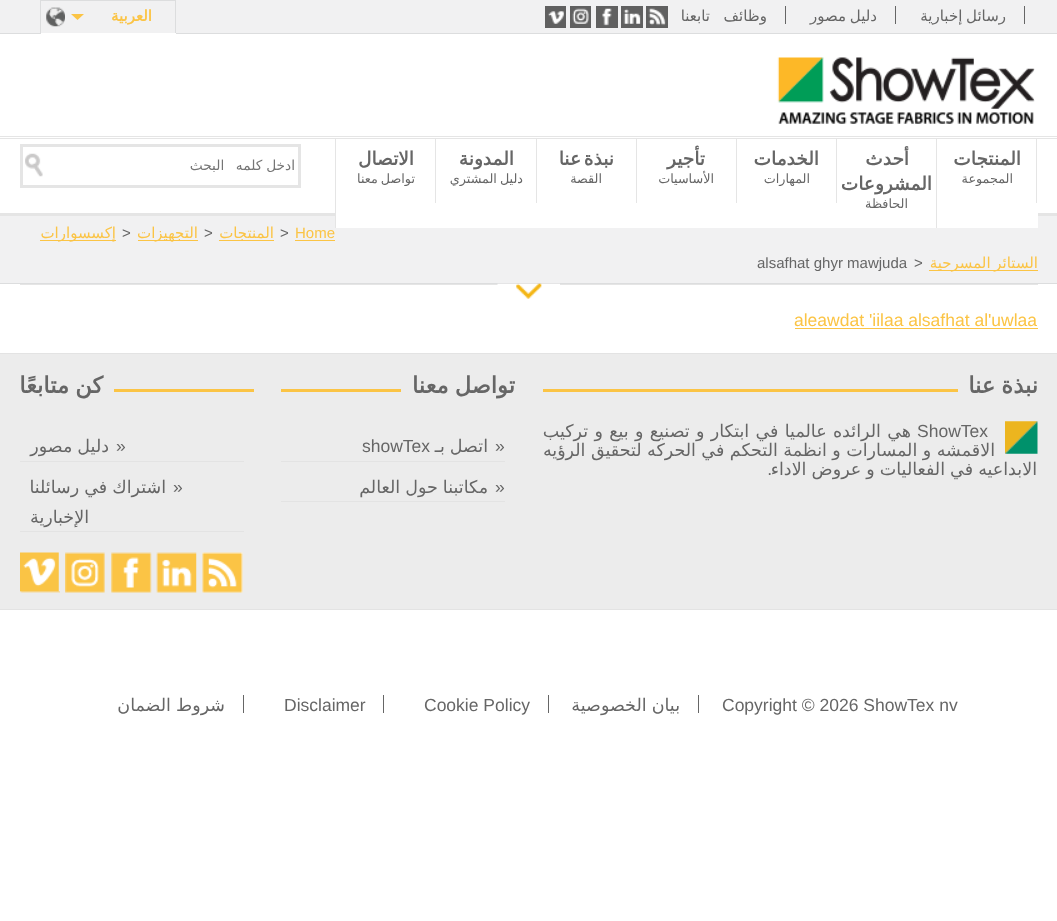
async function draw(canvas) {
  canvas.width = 1057
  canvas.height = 921
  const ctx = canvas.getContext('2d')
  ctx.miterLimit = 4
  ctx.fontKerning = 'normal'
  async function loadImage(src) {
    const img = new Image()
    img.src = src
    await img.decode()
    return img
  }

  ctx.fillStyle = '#fff'
  ctx.fillRect(0, 0, 1057, 921)
  ctx.fillStyle = '#e5e5e5'
  ctx.fillRect(0, 136, 1057, 1)
  ctx.fillStyle = '#f1f1f2'
  ctx.fillRect(0, 0, 1057, 33)
  ctx.fillStyle = '#dcddde'
  ctx.fillRect(0, 33, 1057, 1)
  ctx.fillStyle = '#666'
  ctx.fillRect(1024, 6, 1, 18)
  ctx.wordSpacing = '-1px'
  ctx.direction = 'rtl'
  ctx.font = '15px DejaVu Sans'
  ctx.fillText('رسائل إخبارية', 1006, 21)
  ctx.fillRect(895, 6, 1, 18)
  ctx.fillText('دليل مصور', 877, 21)
  ctx.fillRect(785, 6, 1, 18)
  ctx.wordSpacing = '0px'
  ctx.fillText('وظائف', 767, 21)
  ctx.fillText('تابعنا', 710, 21)
  ctx.fillStyle = '#606060'
  ctx.fillRect(646, 6, 22, 22)
  ctx.drawImage(await loadImage('image0.png'), 648, 8, 18, 18)
  ctx.fillRect(621, 6, 22, 22)
  ctx.drawImage(await loadImage('image1.png'), 623, 8, 18, 16)
  ctx.fillRect(596, 6, 22, 22)
  ctx.drawImage(await loadImage('image2.png'), 602, 8, 10, 18)
  ctx.fillRect(570, 6, 21, 22)
  ctx.drawImage(await loadImage('image3.png'), 572, 8, 17, 16)
  ctx.fillRect(545, 6, 21, 22)
  ctx.drawImage(await loadImage('image4.png'), 548, 11, 16, 13)
  ctx.fillStyle = '#dcddde'
  ctx.fillRect(40, 0, 136, 1)
  ctx.fillRect(175, 0, 1, 34)
  ctx.fillStyle = '#fff'
  ctx.fillRect(40, 33, 136, 1)
  ctx.fillStyle = '#dcddde'
  ctx.fillRect(40, 0, 1, 34)
  ctx.font = 'bold 15px DejaVu Sans'
  ctx.fillStyle = '#fbc445'
  ctx.fillText('العربية', 152, 21)
  ctx.beginPath()
  ctx.moveTo(71, 14)
  ctx.lineTo(84, 14)
  ctx.lineTo(77.5, 20)
  ctx.closePath()
  ctx.fill()
  ctx.drawImage(await loadImage('image5.png'), 46, 7, 19, 20)
  ctx.drawImage(await loadImage('image6.png'), 777, 57, 258, 67)
  ctx.fillStyle = '#e5e5e5'
  ctx.fillRect(0, 138, 1057, 1)
  ctx.fillRect(0, 213, 1057, 3)
  ctx.fillStyle = '#f1f1f2'
  ctx.fillRect(0, 216, 1057, 67)
  ctx.fillStyle = '#fff'
  ctx.fillRect(336, 213, 702, 15)
  ctx.fillStyle = '#e5e5e5'
  ctx.fillRect(335, 139, 1, 89)
  ctx.fillRect(1036, 138, 1, 65)
  ctx.font = 'bold 18.5px DejaVu Sans'
  ctx.fillStyle = '#666'
  ctx.fillText('المنتجات', 1021, 165)
  ctx.font = '12.75px DejaVu Sans'
  ctx.fillText('المجموعة', 1013, 183)
  ctx.fillStyle = '#e5e5e5'
  ctx.fillRect(936, 138, 1, 90)
  ctx.font = 'bold 18.5px DejaVu Sans'
  ctx.fillStyle = '#666'
  ctx.fillText('أحدث', 909, 165)
  ctx.fillText('المشروعات', 932, 190)
  ctx.font = '12.75px DejaVu Sans'
  ctx.fillText('الحافظة', 908, 208)
  ctx.fillStyle = '#e5e5e5'
  ctx.fillRect(836, 138, 1, 65)
  ctx.font = 'bold 18.5px DejaVu Sans'
  ctx.fillStyle = '#666'
  ctx.fillText('الخدمات', 819, 165)
  ctx.font = '12.75px DejaVu Sans'
  ctx.fillText('المهارات', 810, 183)
  ctx.fillStyle = '#e5e5e5'
  ctx.fillRect(736, 138, 1, 65)
  ctx.font = 'bold 18.5px DejaVu Sans'
  ctx.fillStyle = '#666'
  ctx.fillText('تأجير', 705, 165)
  ctx.font = '12.75px DejaVu Sans'
  ctx.fillText('الأساسيات', 714, 183)
  ctx.fillStyle = '#e5e5e5'
  ctx.fillRect(636, 138, 1, 65)
  ctx.wordSpacing = '-3px'
  ctx.font = 'bold 18.5px DejaVu Sans'
  ctx.fillStyle = '#666'
  ctx.fillText('نبذة عنا', 614, 165)
  ctx.wordSpacing = '0px'
  ctx.font = '12.75px DejaVu Sans'
  ctx.fillText('القصة', 602, 183)
  ctx.fillStyle = '#e5e5e5'
  ctx.fillRect(536, 138, 1, 65)
  ctx.font = 'bold 18.5px DejaVu Sans'
  ctx.fillStyle = '#666'
  ctx.fillText('المدونة', 514, 165)
  ctx.wordSpacing = '-1px'
  ctx.font = '12.75px DejaVu Sans'
  ctx.fillText('دليل المشتري', 523, 183)
  ctx.fillStyle = '#e5e5e5'
  ctx.fillRect(435, 138, 1, 65)
  ctx.wordSpacing = '0px'
  ctx.font = 'bold 18.5px DejaVu Sans'
  ctx.fillStyle = '#666'
  ctx.fillText('الاتصال', 414, 165)
  ctx.wordSpacing = '-1px'
  ctx.font = '12.75px DejaVu Sans'
  ctx.fillText('تواصل معنا', 415, 183)
  ctx.strokeStyle = '#e5e5e5'
  ctx.lineWidth = 3
  ctx.strokeRect(21.5, 145.5, 278, 41)
  ctx.wordSpacing = '-0.5px'
  ctx.font = '13.75px DejaVu Sans'
  ctx.fillStyle = '#757575'
  ctx.fillText('ادخل كلمه   البحث', 295, 170)
  ctx.drawImage(await loadImage('image7.png'), 25, 153, 18, 24)
  ctx.fillStyle = '#dcddde'
  ctx.fillRect(0, 283, 1057, 1)
  ctx.wordSpacing = '0px'
  ctx.direction = 'ltr'
  ctx.font = '15px Liberation Sans'
  ctx.fillStyle = '#fbc445'
  ctx.fillText('Home', 295, 238)
  ctx.fillRect(295, 240, 40, 1)
  ctx.fillStyle = '#666'
  ctx.fillText('>', 280, 238)
  ctx.fillStyle = '#fbc445'
  ctx.fillRect(219, 240, 55, 1)
  ctx.direction = 'rtl'
  ctx.font = '15px DejaVu Sans'
  ctx.fillText('المنتجات', 274, 238)
  ctx.direction = 'ltr'
  ctx.font = '15px Liberation Sans'
  ctx.fillStyle = '#666'
  ctx.fillText('>', 204, 238)
  ctx.fillStyle = '#fbc445'
  ctx.fillRect(138, 240, 60, 1)
  ctx.direction = 'rtl'
  ctx.font = '15px DejaVu Sans'
  ctx.fillText('التجهيزات', 198, 238)
  ctx.direction = 'ltr'
  ctx.font = '15px Liberation Sans'
  ctx.fillStyle = '#666'
  ctx.fillText('>', 122, 238)
  ctx.fillStyle = '#fbc445'
  ctx.fillRect(40, 240, 76, 1)
  ctx.direction = 'rtl'
  ctx.font = '15px DejaVu Sans'
  ctx.fillText('إكسسوارات', 116, 238)
  ctx.fillRect(929, 270, 109, 1)
  ctx.wordSpacing = '-1px'
  ctx.fillText('الستائر المسرحية', 1038, 268)
  ctx.wordSpacing = '0px'
  ctx.direction = 'ltr'
  ctx.font = '15px Liberation Sans'
  ctx.fillStyle = '#666'
  ctx.fillText('>', 914, 268)
  ctx.fillText('alsafhat ghyr mawjuda', 757, 268)
  ctx.fillStyle = '#e5e5e5'
  ctx.fillRect(20, 284, 1018, 1)
  ctx.drawImage(await loadImage('image8.png'), 497, 283, 63, 16)
  ctx.font = '17.5px Liberation Sans'
  ctx.fillStyle = '#fbc445'
  ctx.fillText('aleawdat \'iilaa alsafhat al\'uwlaa', 794, 326)
  ctx.fillRect(795, 328, 243, 1)
  ctx.fillStyle = '#ececec'
  ctx.fillRect(0, 354, 1057, 255)
  ctx.fillStyle = '#e3e3e3'
  ctx.fillRect(0, 353, 1057, 1)
  ctx.fillRect(0, 609, 1057, 1)
  ctx.wordSpacing = '-1px'
  ctx.direction = 'rtl'
  ctx.font = 'bold 22.5px DejaVu Sans'
  ctx.fillStyle = '#666'
  ctx.fillText('نبذة عنا', 1038, 393)
  ctx.drawImage(await loadImage('image9.png'), 1005, 421, 33, 33)
  ctx.wordSpacing = '0px'
  ctx.direction = 'ltr'
  ctx.font = '17.5px Liberation Sans'
  ctx.fillText('ShowTex', 917, 437)
  ctx.wordSpacing = '0.75px'
  ctx.direction = 'rtl'
  ctx.font = '17.5px DejaVu Sans'
  ctx.fillText('هي الرائده عالميا في ابتكار و تصنيع و بيع و تركيب', 911, 437)
  ctx.wordSpacing = '-0.1px'
  ctx.fillText('الاقمشه و المسارات و انظمة التحكم في الحركه لتحقيق الرؤيه', 995, 456)
  ctx.wordSpacing = '-0.5px'
  ctx.fillText('الابداعيه في الفعاليات و عروض الاداء', 1037, 475)
  ctx.wordSpacing = '0px'
  ctx.font = '17.5px Liberation Sans'
  ctx.fillText('.', 772, 475)
  ctx.fillStyle = '#fbc445'
  ctx.fillRect(543, 389, 415, 3)
  ctx.wordSpacing = '-1px'
  ctx.font = 'bold 22.5px DejaVu Sans'
  ctx.fillStyle = '#666'
  ctx.fillText('تواصل معنا', 515, 393)
  ctx.fillStyle = '#fbc445'
  ctx.fillRect(281, 389, 120, 3)
  ctx.fillStyle = '#e3e3e3'
  ctx.fillRect(281, 461, 224, 1)
  ctx.wordSpacing = '0px'
  ctx.direction = 'ltr'
  ctx.font = '17.5px Liberation Sans'
  ctx.fillStyle = '#666'
  ctx.fillText('»', 495, 452)
  ctx.wordSpacing = '-0.5px'
  ctx.direction = 'rtl'
  ctx.font = '17.5px DejaVu Sans'
  ctx.fillText('اتصل بـ', 488, 452)
  ctx.wordSpacing = '0px'
  ctx.direction = 'ltr'
  ctx.font = '17.5px Liberation Sans'
  ctx.fillText('showTex', 362, 452)
  ctx.fillStyle = '#e3e3e3'
  ctx.fillRect(281, 501, 224, 1)
  ctx.fillStyle = '#666'
  ctx.fillText('»', 495, 493)
  ctx.wordSpacing = '-0.5px'
  ctx.direction = 'rtl'
  ctx.font = '17.5px DejaVu Sans'
  ctx.fillText('مكاتبنا حول العالم', 488, 493)
  ctx.fillStyle = '#fbc445'
  ctx.fillRect(114, 389, 140, 3)
  ctx.wordSpacing = '-1px'
  ctx.font = 'bold 22.5px DejaVu Sans'
  ctx.fillStyle = '#666'
  ctx.fillText('كن متابعًا', 103, 393)
  ctx.fillStyle = '#e3e3e3'
  ctx.fillRect(20, 461, 224, 1)
  ctx.wordSpacing = '0px'
  ctx.direction = 'ltr'
  ctx.font = '17.5px Liberation Sans'
  ctx.fillStyle = '#666'
  ctx.fillText('»', 116, 452)
  ctx.wordSpacing = '-0.5px'
  ctx.direction = 'rtl'
  ctx.font = '17.5px DejaVu Sans'
  ctx.fillText('دليل مصور', 109, 452)
  ctx.fillStyle = '#e3e3e3'
  ctx.fillRect(20, 531, 224, 1)
  ctx.wordSpacing = '0px'
  ctx.direction = 'ltr'
  ctx.font = '17.5px Liberation Sans'
  ctx.fillStyle = '#666'
  ctx.fillText('»', 173, 493)
  ctx.wordSpacing = '-0.5px'
  ctx.direction = 'rtl'
  ctx.font = '17.5px DejaVu Sans'
  ctx.fillText('اشتراك في رسائلنا', 166, 493)
  ctx.wordSpacing = '0px'
  ctx.fillText('الإخبارية', 89, 523)
  ctx.drawImage(await loadImage('image10.png'), 202, 552, 41, 41)
  ctx.drawImage(await loadImage('image11.png'), 156, 552, 41, 41)
  ctx.drawImage(await loadImage('image12.png'), 111, 552, 41, 41)
  ctx.drawImage(await loadImage('image13.png'), 65, 552, 40, 41)
  ctx.drawImage(await loadImage('image14.png'), 20, 552, 40, 41)
  ctx.direction = 'ltr'
  ctx.font = '17.5px Liberation Sans'
  ctx.fillText('Copyright © 2026 ShowTex nv', 722, 711)
  ctx.fillRect(698, 695, 1, 18)
  ctx.wordSpacing = '-0.5px'
  ctx.direction = 'rtl'
  ctx.font = '17.5px DejaVu Sans'
  ctx.fillText('بيان الخصوصية', 680, 711)
  ctx.fillRect(548, 695, 1, 18)
  ctx.wordSpacing = '0px'
  ctx.direction = 'ltr'
  ctx.font = '17.5px Liberation Sans'
  ctx.fillText('Cookie Policy', 424, 711)
  ctx.fillRect(383, 695, 1, 18)
  ctx.fillText('Disclaimer', 284, 711)
  ctx.fillRect(243, 695, 1, 18)
  ctx.wordSpacing = '-0.5px'
  ctx.direction = 'rtl'
  ctx.font = '17.5px DejaVu Sans'
  ctx.fillText('شروط الضمان', 225, 711)
}

draw(document.querySelector('canvas'))
